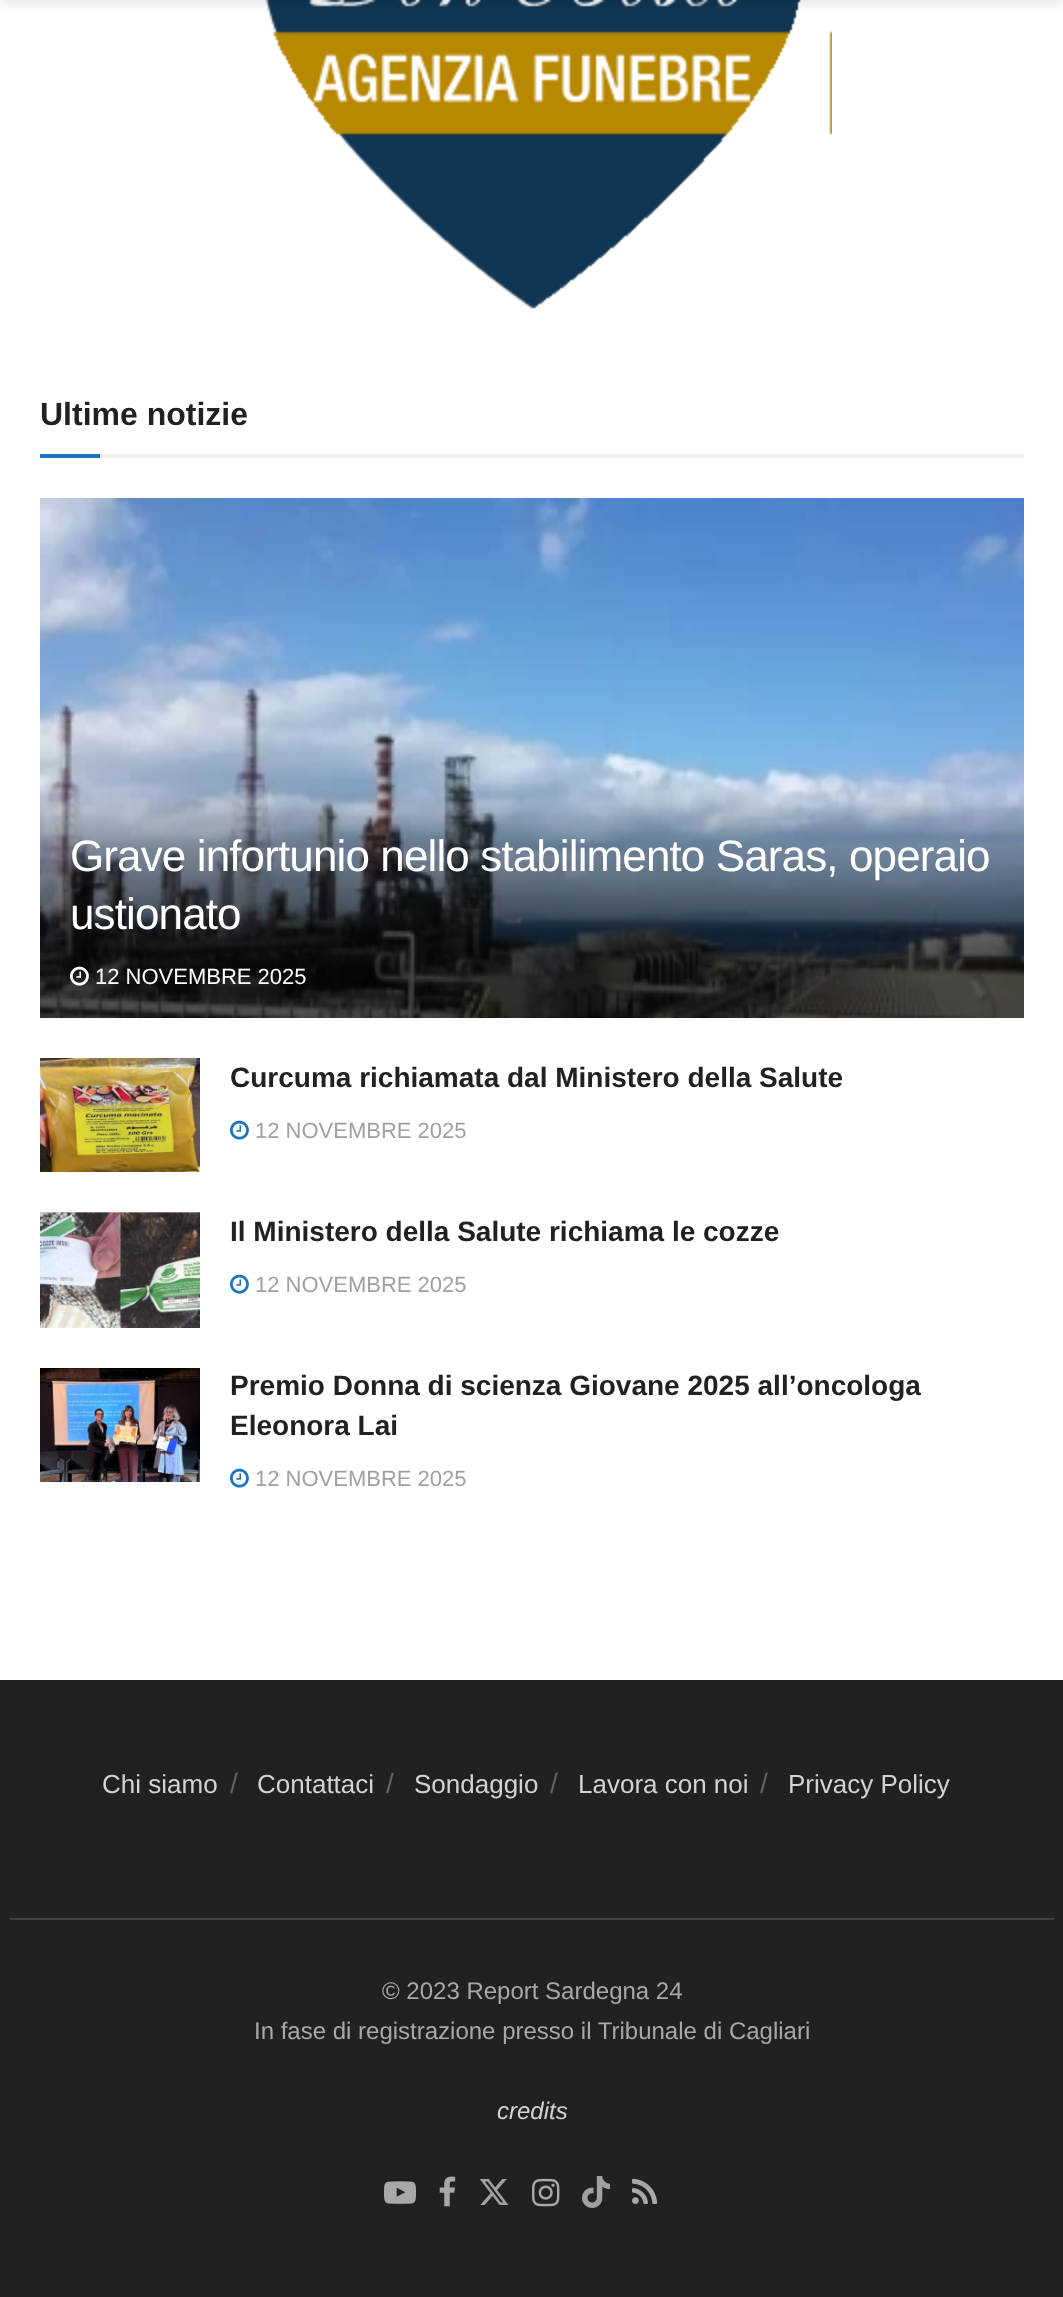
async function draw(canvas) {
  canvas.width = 1063
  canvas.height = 2297
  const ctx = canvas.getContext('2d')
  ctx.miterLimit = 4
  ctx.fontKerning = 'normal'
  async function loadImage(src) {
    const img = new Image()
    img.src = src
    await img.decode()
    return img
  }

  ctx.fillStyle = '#fff'
  ctx.fillRect(0, 0, 1063, 2297)
  ctx.drawImage(await loadImage('image0.png'), 265, 0, 567, 309)
  ctx.fillStyle = '#0000001a'
  ctx.filter = 'blur(6px)'
  ctx.beginPath()
  ctx.rect(0, -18, 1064, 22)
  ctx.fill()
  ctx.filter = 'none'
  ctx.fillStyle = '#eee'
  ctx.fillRect(100, 454, 924, 4)
  ctx.font = 'bold 32px Liberation Sans'
  ctx.fillStyle = '#212121'
  ctx.fillText('Ultime notizie', 40, 425)
  ctx.fillStyle = '#1e73be'
  ctx.fillRect(40, 454, 60, 4)
  ctx.drawImage(await loadImage('image1.png'), 40, 498, 984, 520)
  ctx.letterSpacing = '-0.88px'
  ctx.font = '44px Liberation Sans'
  ctx.fillStyle = '#fff'
  ctx.fillText('Grave infortunio nello stabilimento Saras, operaio', 70, 871)
  ctx.fillText('ustionato', 70, 929)
  ctx.drawImage(await loadImage('image2.png'), 70, 966, 19, 20)
  ctx.letterSpacing = '0px'
  ctx.font = '22px Liberation Sans'
  ctx.fillText('12 NOVEMBRE 2025', 95, 984)
  ctx.drawImage(await loadImage('image3.png'), 40, 1058, 160, 114)
  ctx.font = 'bold 28px Liberation Sans'
  ctx.fillStyle = '#212121'
  ctx.fillText('Curcuma richiamata dal Ministero della Salute', 230, 1087)
  ctx.drawImage(await loadImage('image4.png'), 230, 1120, 19, 20)
  ctx.font = '22px Liberation Sans'
  ctx.fillStyle = '#a0a0a0'
  ctx.fillText('12 NOVEMBRE 2025', 255, 1138)
  ctx.drawImage(await loadImage('image5.png'), 40, 1212, 160, 116)
  ctx.font = 'bold 28px Liberation Sans'
  ctx.fillStyle = '#212121'
  ctx.fillText('Il Ministero della Salute richiama le cozze', 230, 1241)
  ctx.drawImage(await loadImage('image4.png'), 230, 1274, 19, 20)
  ctx.font = '22px Liberation Sans'
  ctx.fillStyle = '#a0a0a0'
  ctx.fillText('12 NOVEMBRE 2025', 255, 1292)
  ctx.drawImage(await loadImage('image6.png'), 40, 1368, 160, 114)
  ctx.font = 'bold 28px Liberation Sans'
  ctx.fillStyle = '#212121'
  ctx.fillText('Premio Donna di scienza Giovane 2025 all’oncologa', 230, 1395)
  ctx.fillText('Eleonora Lai', 230, 1435)
  ctx.drawImage(await loadImage('image4.png'), 230, 1468, 19, 20)
  ctx.font = '22px Liberation Sans'
  ctx.fillStyle = '#a0a0a0'
  ctx.fillText('12 NOVEMBRE 2025', 255, 1486)
  ctx.fillStyle = '#212121'
  ctx.fillRect(0, 1680, 1063, 617)
  ctx.font = '26px Liberation Sans'
  ctx.fillStyle = '#d3d3d3'
  ctx.fillText('Chi siamo', 102, 1793)
  ctx.font = '28px Liberation Sans'
  ctx.fillStyle = '#646464'
  ctx.fillText('/', 230, 1793)
  ctx.font = '26px Liberation Sans'
  ctx.fillStyle = '#d3d3d3'
  ctx.fillText('Contattaci', 257, 1793)
  ctx.font = '28px Liberation Sans'
  ctx.fillStyle = '#646464'
  ctx.fillText('/', 386, 1793)
  ctx.font = '26px Liberation Sans'
  ctx.fillStyle = '#d3d3d3'
  ctx.fillText('Sondaggio', 414, 1793)
  ctx.font = '28px Liberation Sans'
  ctx.fillStyle = '#646464'
  ctx.fillText('/', 550, 1793)
  ctx.font = '26px Liberation Sans'
  ctx.fillStyle = '#d3d3d3'
  ctx.fillText('Lavora con noi', 578, 1793)
  ctx.font = '28px Liberation Sans'
  ctx.fillStyle = '#646464'
  ctx.fillText('/', 760, 1793)
  ctx.font = '26px Liberation Sans'
  ctx.fillStyle = '#d3d3d3'
  ctx.fillText('Privacy Policy', 788, 1793)
  ctx.fillStyle = '#424242'
  ctx.fillRect(10, 1918, 1044, 2)
  ctx.font = '24px Liberation Sans'
  ctx.fillStyle = '#a8a8aa'
  ctx.fillText('© 2023 Report Sardegna 24', 382, 1999)
  ctx.fillText('In fase di registrazione presso il Tribunale di Cagliari', 254, 2039)
  ctx.font = 'italic 24px Liberation Sans'
  ctx.fillStyle = '#d3d3d3'
  ctx.fillText('credits', 497, 2119)
  ctx.drawImage(await loadImage('image7.png'), 384, 2181, 32, 23)
  ctx.drawImage(await loadImage('image8.png'), 439, 2176, 17, 31)
  ctx.drawImage(await loadImage('image9.png'), 479, 2179, 30, 26)
  ctx.drawImage(await loadImage('image10.png'), 532, 2178, 28, 29)
  ctx.drawImage(await loadImage('image11.png'), 582, 2176, 28, 32)
  ctx.drawImage(await loadImage('image12.png'), 632, 2178, 26, 26)
}

draw(document.querySelector('canvas'))
